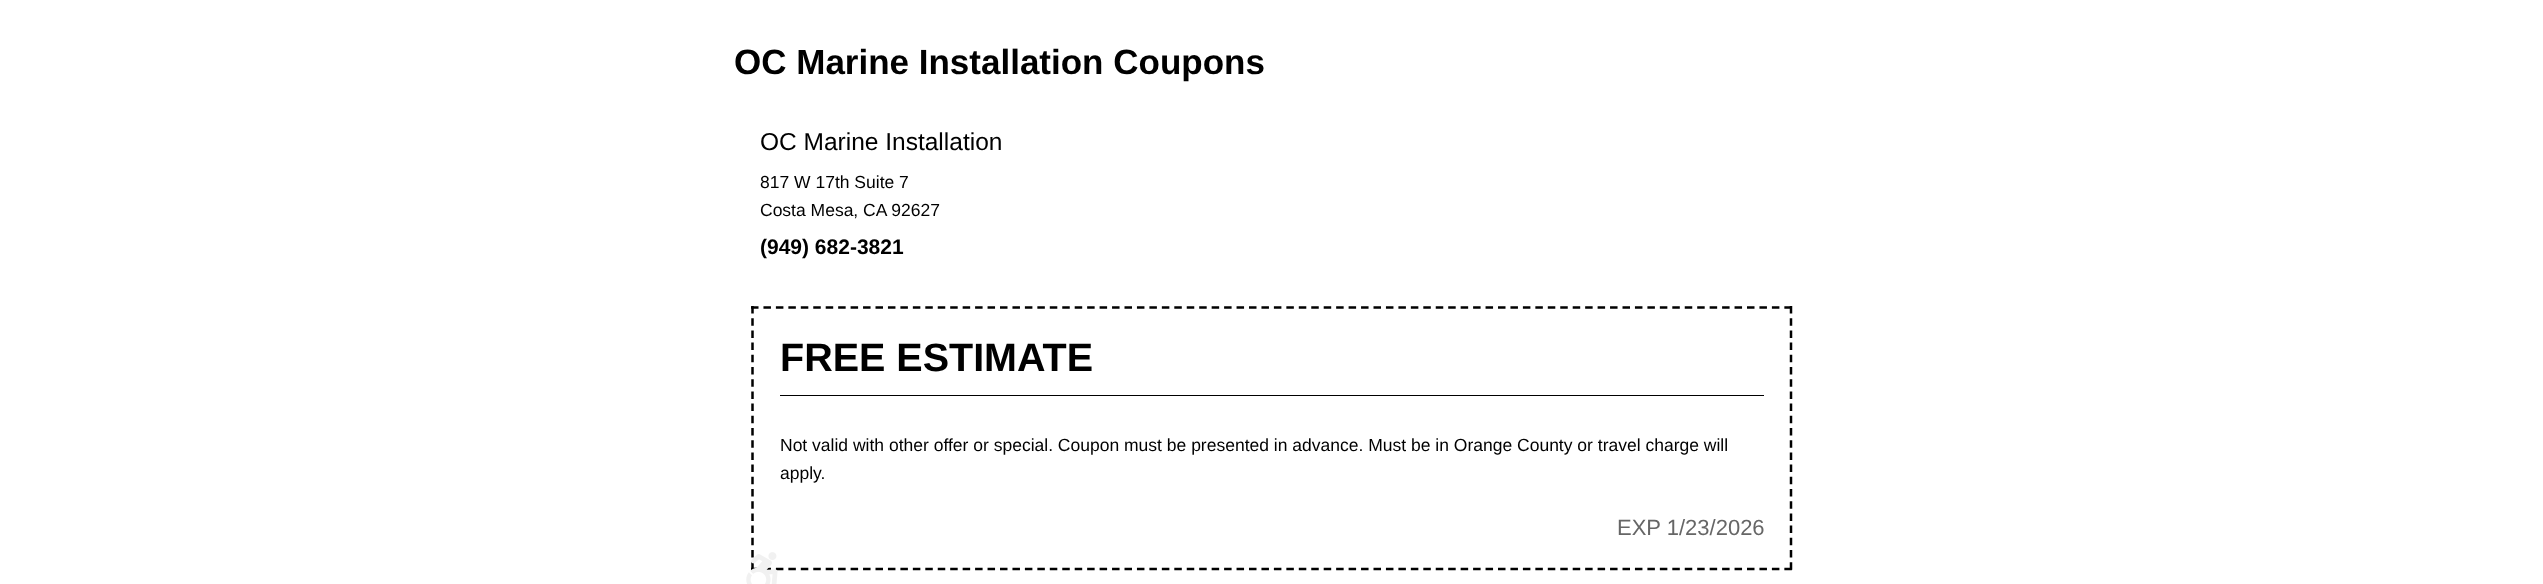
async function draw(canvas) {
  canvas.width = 2543
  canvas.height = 584
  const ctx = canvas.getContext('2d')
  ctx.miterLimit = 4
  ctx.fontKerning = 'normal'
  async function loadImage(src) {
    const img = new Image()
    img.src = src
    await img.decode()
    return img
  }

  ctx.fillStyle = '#fff'
  ctx.fillRect(0, 0, 2543, 584)
  ctx.font = 'bold 35px Liberation Sans'
  ctx.fillStyle = '#000'
  ctx.fillText('OC Marine Installation Coupons', 734, 74)
  ctx.font = '24.5px Liberation Sans'
  ctx.fillText('OC Marine Installation', 760, 150)
  ctx.font = '17.5px Liberation Sans'
  ctx.fillText('817 W 17th Suite 7', 760, 188)
  ctx.fillText('Costa Mesa, CA 92627', 760, 216)
  ctx.font = 'bold 21px Liberation Sans'
  ctx.fillText('(949) 682-3821', 760, 254)
  ctx.beginPath()
  ctx.moveTo(751, 307.5)
  ctx.lineTo(1792.5, 307.5)
  ctx.strokeStyle = '#000'
  ctx.lineWidth = 2.5
  ctx.setLineDash([7.5, 4.95])
  ctx.stroke()
  ctx.beginPath()
  ctx.moveTo(1791, 306)
  ctx.lineTo(1791, 570)
  ctx.setLineDash([7.5, 4.7])
  ctx.stroke()
  ctx.beginPath()
  ctx.moveTo(751, 569)
  ctx.lineTo(1792.5, 569)
  ctx.setLineDash([7.5, 4.95])
  ctx.stroke()
  ctx.beginPath()
  ctx.moveTo(752.5, 306)
  ctx.lineTo(752.5, 570)
  ctx.setLineDash([7.5, 4.7])
  ctx.stroke()
  ctx.fillRect(780, 395, 984, 1)
  ctx.font = 'bold 39.5px Liberation Sans'
  ctx.fillText('FREE ESTIMATE', 780, 371)
  ctx.font = '17.5px Liberation Sans'
  ctx.fillText('Not valid with other offer or special. Coupon must be presented in advance. Must be in Orange County or travel charge will', 780, 451)
  ctx.fillText('apply.', 780, 479)
  ctx.font = '22px Liberation Sans'
  ctx.fillStyle = '#666'
  ctx.fillText('EXP 1/23/2026', 1617, 535)
  ctx.drawImage(await loadImage('image0.png'), 746, 552, 32, 32)
}

draw(document.querySelector('canvas'))
